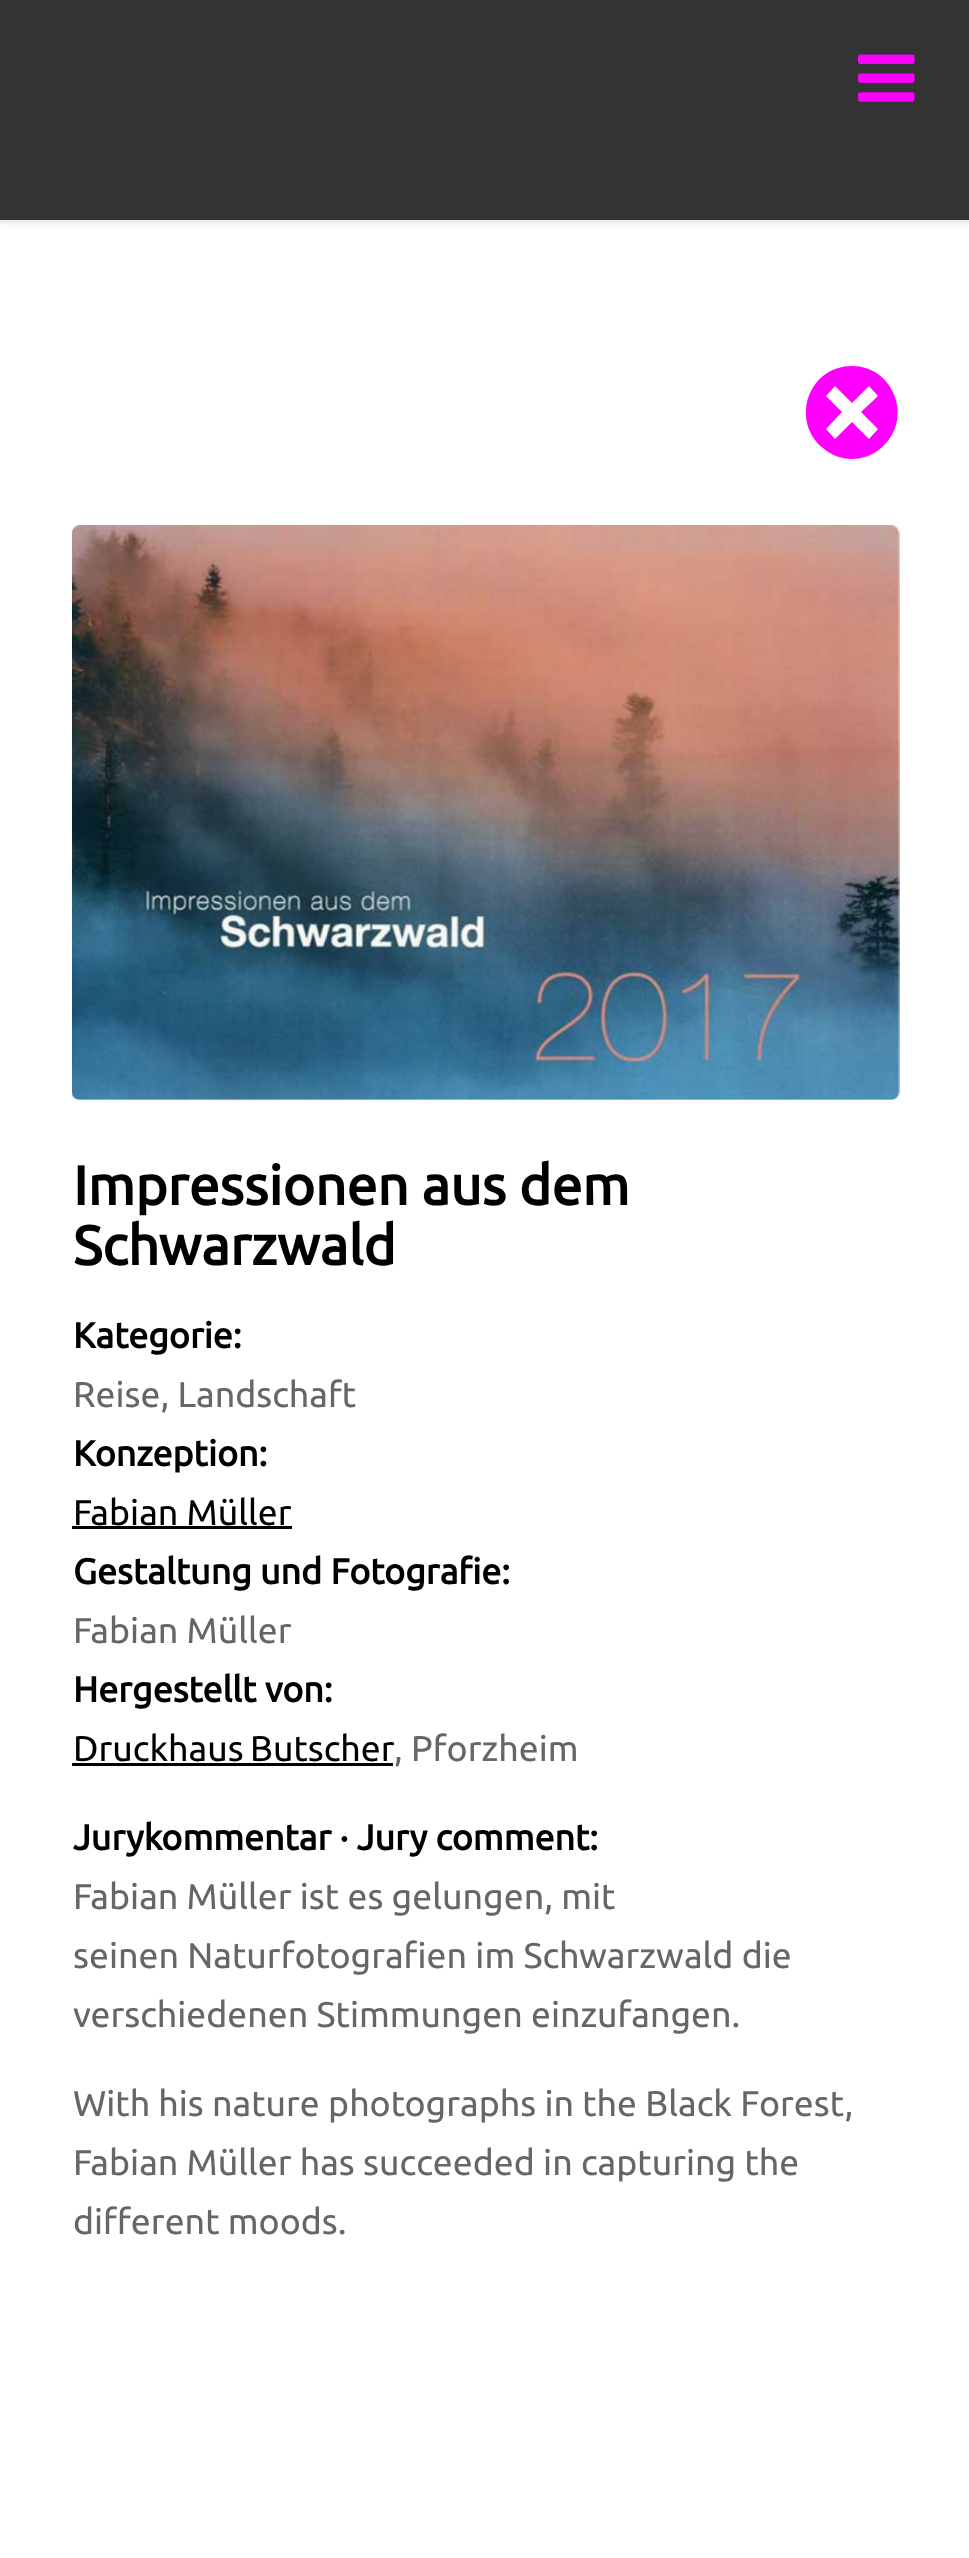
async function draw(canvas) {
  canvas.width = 969
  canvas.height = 2558
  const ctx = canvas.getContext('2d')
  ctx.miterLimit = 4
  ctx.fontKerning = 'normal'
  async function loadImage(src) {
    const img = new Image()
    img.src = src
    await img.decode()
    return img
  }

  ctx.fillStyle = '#fff'
  ctx.fillRect(0, 0, 969, 2558)
  ctx.fillStyle = '#0000001a'
  ctx.filter = 'blur(3px)'
  ctx.beginPath()
  ctx.rect(-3, -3, 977, 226)
  ctx.fill()
  ctx.filter = 'none'
  ctx.fillStyle = '#333'
  ctx.fillRect(0, 0, 969, 220)
  ctx.drawImage(await loadImage('image0.png'), 858, 54, 57, 48)
  ctx.fillStyle = '#f0f'
  ctx.beginPath()
  ctx.moveTo(852, 366)
  ctx.bezierCurveTo(895, 366, 914, 421, 881, 448)
  ctx.bezierCurveTo(873, 455, 863, 459, 852, 459)
  ctx.bezierCurveTo(841, 459, 831, 455, 823, 448)
  ctx.bezierCurveTo(790, 421, 808, 366, 852, 366)
  ctx.closePath()
  ctx.moveTo(861, 412)
  ctx.lineTo(878, 396)
  ctx.lineTo(869, 386)
  ctx.lineTo(852, 403)
  ctx.lineTo(835, 386)
  ctx.lineTo(826, 396)
  ctx.lineTo(842, 412)
  ctx.lineTo(826, 429)
  ctx.lineTo(835, 439)
  ctx.lineTo(852, 422)
  ctx.lineTo(869, 439)
  ctx.lineTo(878, 429)
  ctx.closePath()
  ctx.fill()
  ctx.drawImage(await loadImage('image1.png'), 72, 525, 828, 575)
  ctx.font = 'bold 55px Ubuntu'
  ctx.fillStyle = '#000'
  ctx.fillText('Impressionen aus dem', 73, 1205)
  ctx.fillText('Schwarzwald', 73, 1265)
  ctx.font = 'bold 35.75px Ubuntu'
  ctx.fillText('Kategorie:', 73, 1348)
  ctx.font = '35.75px Ubuntu'
  ctx.fillStyle = '#666'
  ctx.fillText('Reise, Landschaft', 73, 1407)
  ctx.font = 'bold 35.75px Ubuntu'
  ctx.fillStyle = '#000'
  ctx.fillText('Konzeption:', 73, 1466)
  ctx.font = '35.75px Ubuntu'
  ctx.fillText('Fabian Müller', 73, 1525)
  ctx.fillRect(72, 1526, 220, 3)
  ctx.font = 'bold 35.75px Ubuntu'
  ctx.fillText('Gestaltung und Fotografie:', 73, 1584)
  ctx.font = '35.75px Ubuntu'
  ctx.fillStyle = '#666'
  ctx.fillText('Fabian Müller', 73, 1643)
  ctx.font = 'bold 35.75px Ubuntu'
  ctx.fillStyle = '#000'
  ctx.fillText('Hergestellt von:', 73, 1702)
  ctx.wordSpacing = '-2px'
  ctx.font = '35.75px Ubuntu'
  ctx.fillText('Druckhaus Butscher', 73, 1761)
  ctx.fillRect(72, 1763, 321, 3)
  ctx.wordSpacing = '0px'
  ctx.fillStyle = '#666'
  ctx.fillText(', Pforzheim', 394, 1761)
  ctx.font = 'bold 35.75px Ubuntu'
  ctx.fillStyle = '#000'
  ctx.fillText('Jurykommentar · Jury comment:', 73, 1850)
  ctx.font = '35.75px Ubuntu'
  ctx.fillStyle = '#666'
  ctx.fillText('Fabian Müller ist es gelungen, mit', 73, 1909)
  ctx.fillText('seinen Naturfotografien im Schwarzwald die', 73, 1968)
  ctx.fillText('verschiedenen Stimmungen einzufangen.', 73, 2027)
  ctx.fillText('With his nature photographs in the Black Forest,', 73, 2116)
  ctx.fillText('Fabian Müller has succeeded in capturing the', 73, 2175)
  ctx.fillText('different moods.', 73, 2234)
}

draw(document.querySelector('canvas'))
